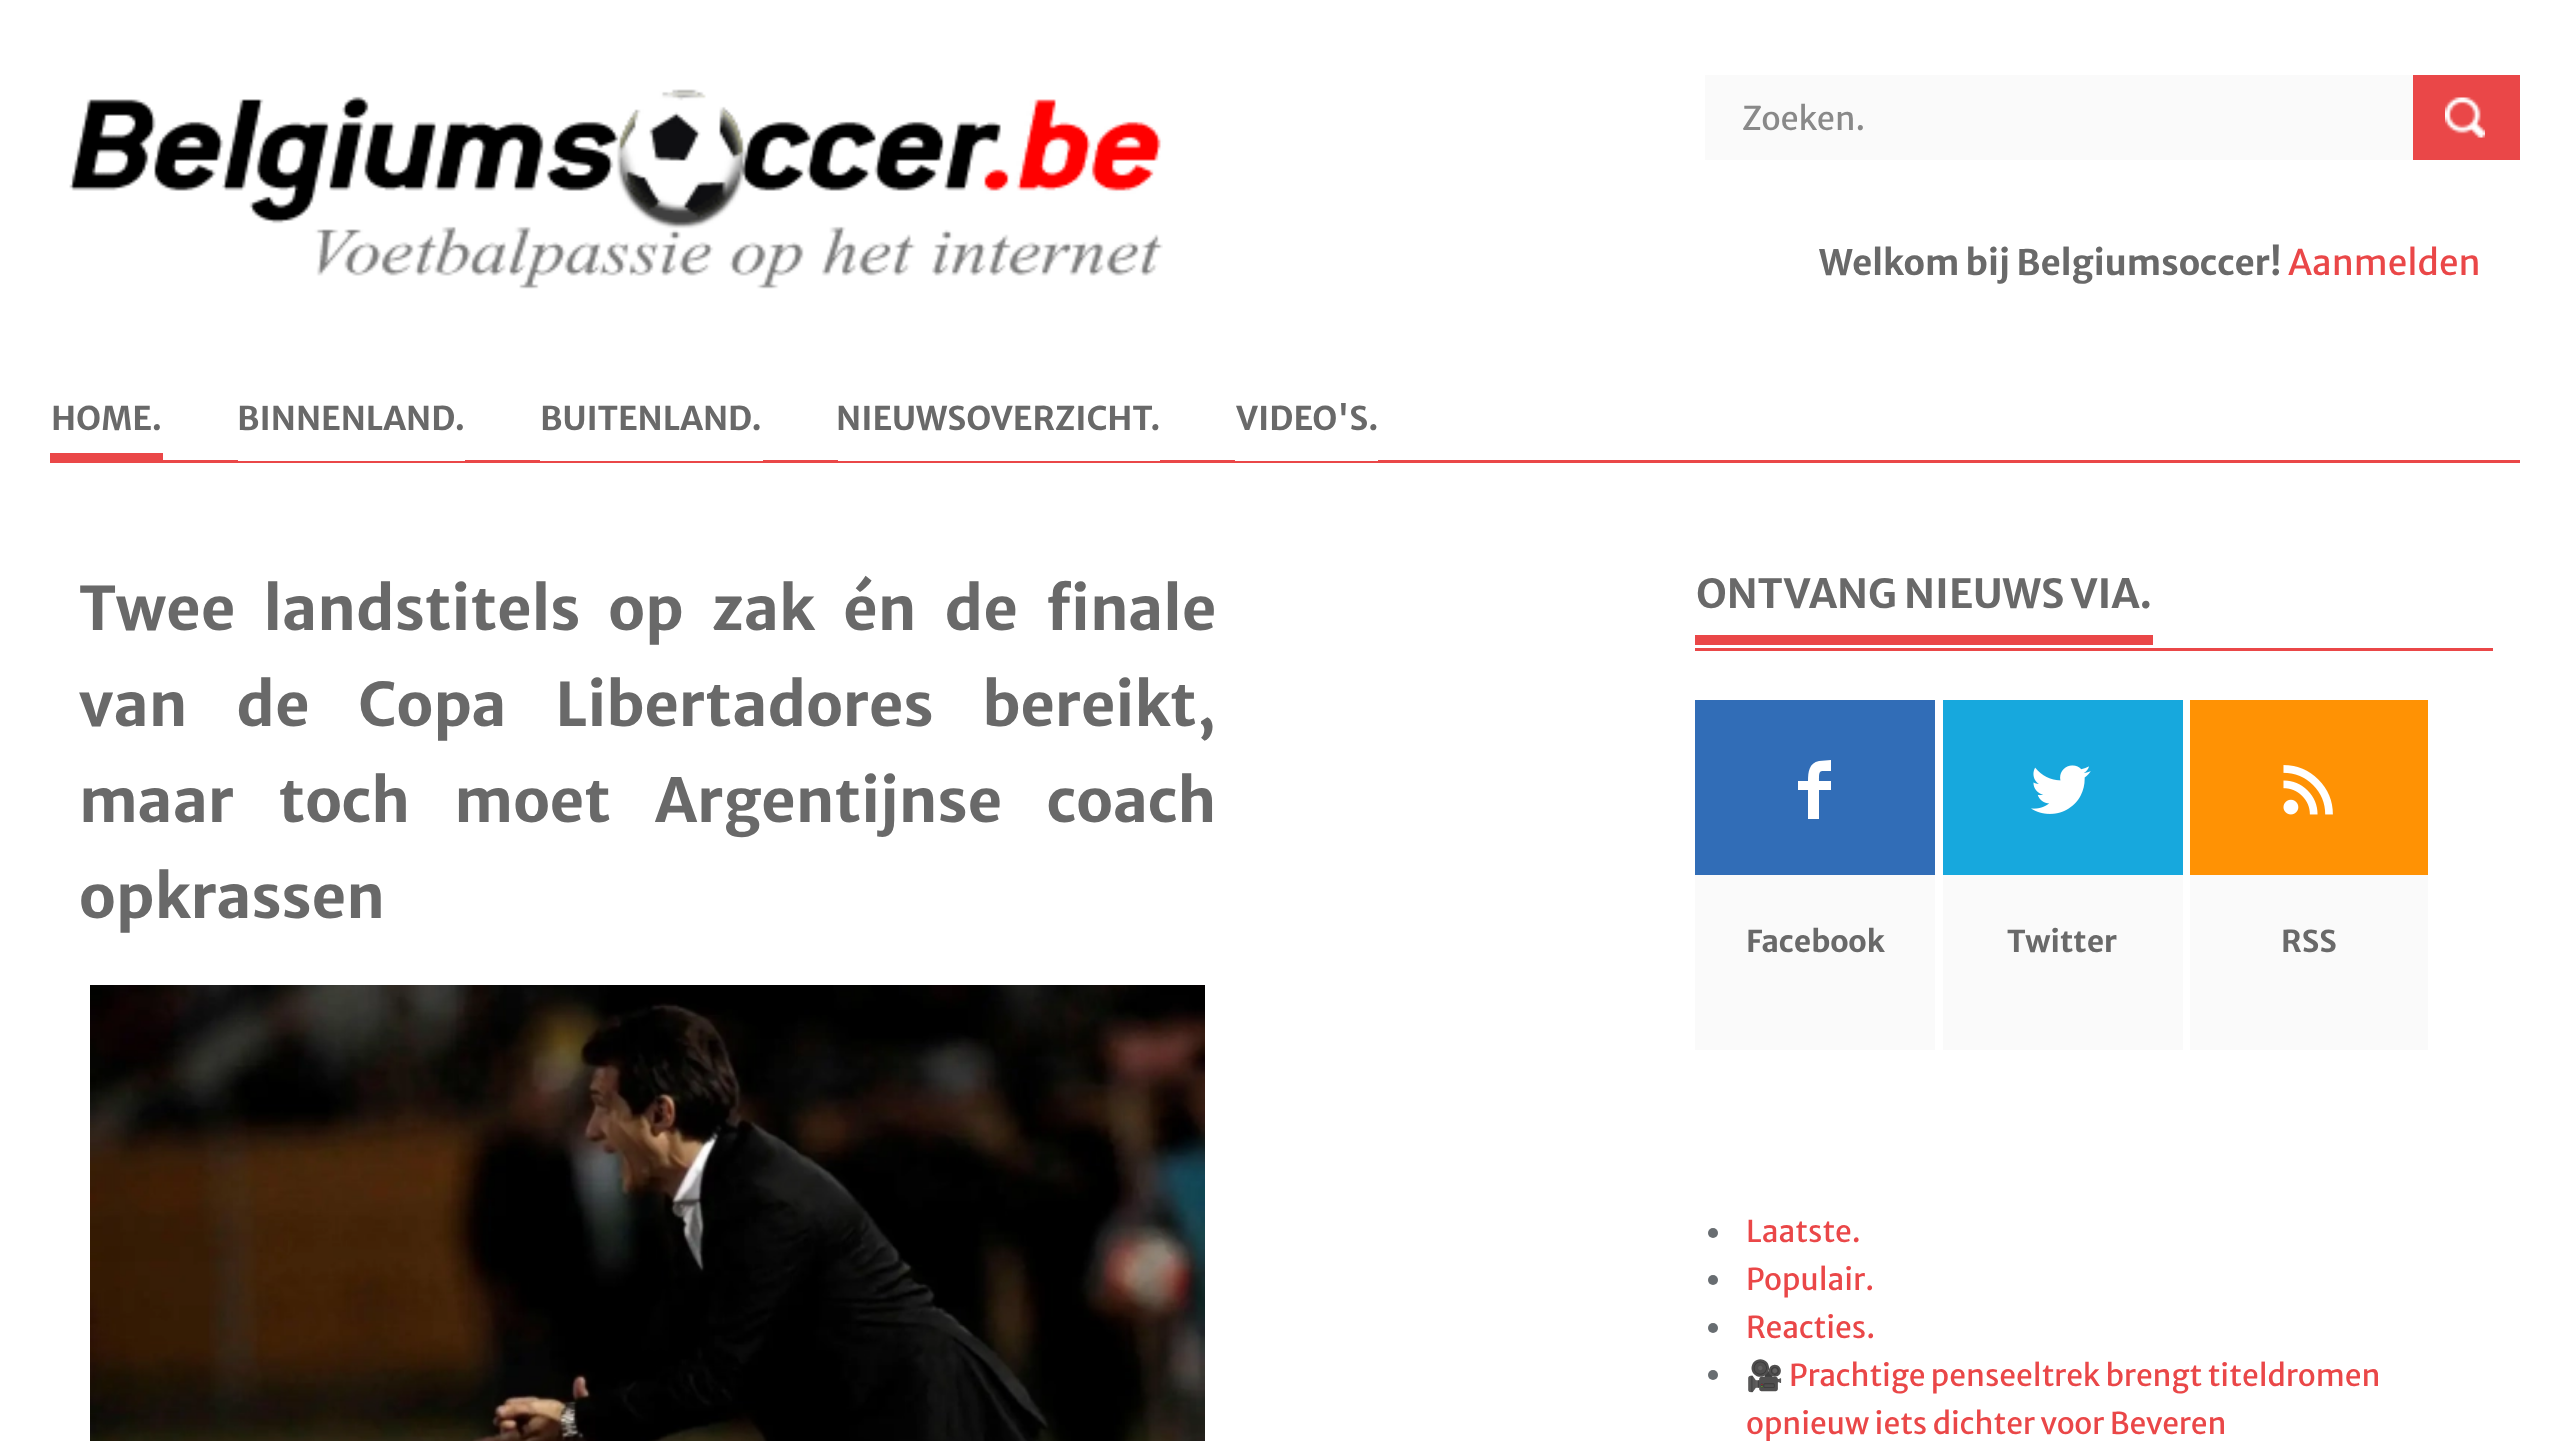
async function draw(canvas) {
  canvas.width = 2570
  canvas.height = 1441
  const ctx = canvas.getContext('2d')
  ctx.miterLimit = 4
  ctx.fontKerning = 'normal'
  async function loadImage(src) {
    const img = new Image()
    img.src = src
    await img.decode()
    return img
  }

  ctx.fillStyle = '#fff'
  ctx.fillRect(0, 0, 2570, 1441)
  ctx.drawImage(await loadImage('image0.png'), 69, 89, 1094, 200)
  ctx.fillStyle = '#fafafa'
  ctx.fillRect(1705, 75, 708, 85)
  ctx.font = '32.5px Merriweather Sans'
  ctx.fillStyle = '#898989'
  ctx.fillText('Zoeken.', 1742, 130)
  ctx.fillStyle = '#ea4748'
  ctx.fillRect(2413, 75, 107, 85)
  ctx.drawImage(await loadImage('image1.png'), 2445, 97, 40, 41)
  ctx.font = 'bold 35px Merriweather Sans'
  ctx.fillStyle = '#696969'
  ctx.fillText('Welkom bij Belgiumsoccer!', 1819, 275)
  ctx.font = '35px Merriweather Sans'
  ctx.fillStyle = '#ea4748'
  ctx.fillText('Aanmelden', 2288, 275)
  ctx.fillRect(50, 460, 2470, 3)
  ctx.fillRect(50, 453, 113, 7)
  ctx.font = 'bold 32.5px Merriweather Sans'
  ctx.fillStyle = '#696969'
  ctx.fillText('HOME.', 51, 430)
  ctx.fillStyle = '#fff'
  ctx.fillRect(238, 460, 227, 1)
  ctx.fillStyle = '#696969'
  ctx.fillText('BINNENLAND.', 237, 430)
  ctx.fillStyle = '#fff'
  ctx.fillRect(540, 460, 223, 1)
  ctx.fillStyle = '#696969'
  ctx.fillText('BUITENLAND.', 540, 430)
  ctx.fillStyle = '#fff'
  ctx.fillRect(838, 460, 322, 1)
  ctx.fillStyle = '#696969'
  ctx.fillText('NIEUWSOVERZICHT.', 836, 430)
  ctx.fillStyle = '#fff'
  ctx.fillRect(1235, 460, 143, 1)
  ctx.fillStyle = '#696969'
  ctx.fillText('VIDEO\'S.', 1236, 430)
  ctx.wordSpacing = '17.25px'
  ctx.font = 'bold 60px Merriweather Sans'
  ctx.fillText('Twee landstitels op zak én de finale', 79, 630)
  ctx.wordSpacing = '38px'
  ctx.fillText('van de Copa Libertadores bereikt,', 79, 726)
  ctx.wordSpacing = '33.5px'
  ctx.fillText('maar toch moet Argentijnse coach', 79, 822)
  ctx.wordSpacing = '0px'
  ctx.fillText('opkrassen', 79, 918)
  ctx.drawImage(await loadImage('image2.png'), 90, 985, 1115, 456)
  ctx.fillStyle = '#ea4748'
  ctx.fillRect(1695, 648, 798, 3)
  ctx.font = 'bold 40px Merriweather Sans'
  ctx.fillStyle = '#696969'
  ctx.fillText('ONTVANG NIEUWS VIA.', 1696, 608)
  ctx.fillStyle = '#ea4748'
  ctx.fillRect(1695, 635, 458, 10)
  ctx.fillStyle = '#fafafa'
  ctx.fillRect(1695, 875, 240, 175)
  ctx.fillStyle = '#316db7'
  ctx.fillRect(1695, 700, 240, 175)
  ctx.fillStyle = '#fff'
  ctx.beginPath()
  ctx.moveTo(1831, 771)
  ctx.bezierCurveTo(1819, 771, 1819, 769, 1819, 781)
  ctx.lineTo(1831, 781)
  ctx.lineTo(1831, 790)
  ctx.lineTo(1819, 790)
  ctx.lineTo(1819, 819)
  ctx.lineTo(1808, 819)
  ctx.lineTo(1808, 790)
  ctx.lineTo(1798, 790)
  ctx.lineTo(1798, 781)
  ctx.lineTo(1808, 781)
  ctx.bezierCurveTo(1808, 772, 1809, 763, 1819, 761)
  ctx.lineTo(1831, 760)
  ctx.closePath()
  ctx.fill()
  ctx.font = 'bold 30px Merriweather Sans'
  ctx.fillStyle = '#696969'
  ctx.fillText('Facebook', 1746, 952)
  ctx.fillStyle = '#fafafa'
  ctx.fillRect(1943, 875, 240, 175)
  ctx.fillStyle = '#17a8dd'
  ctx.fillRect(1943, 700, 240, 175)
  ctx.drawImage(await loadImage('image3.png'), 2031, 765, 60, 49)
  ctx.fillStyle = '#696969'
  ctx.fillText('Twitter', 2007, 952)
  ctx.fillStyle = '#fafafa'
  ctx.fillRect(2190, 875, 238, 175)
  ctx.fillStyle = '#ff9204'
  ctx.fillRect(2190, 700, 238, 175)
  ctx.drawImage(await loadImage('image4.png'), 2283, 765, 50, 50)
  ctx.fillStyle = '#696969'
  ctx.fillText('RSS', 2281, 952)
  ctx.fillStyle = '#686d71'
  ctx.beginPath()
  ctx.arc(1713, 1233, 5, 0, 2 * Math.PI)
  ctx.fill()
  ctx.font = '30px Merriweather Sans'
  ctx.fillStyle = '#ea4748'
  ctx.fillText('Laatste.', 1746, 1242)
  ctx.fillStyle = '#686d71'
  ctx.beginPath()
  ctx.arc(1713, 1280, 5, 0, 2 * Math.PI)
  ctx.fill()
  ctx.fillStyle = '#ea4748'
  ctx.fillText('Populair.', 1746, 1290)
  ctx.fillStyle = '#686d71'
  ctx.beginPath()
  ctx.arc(1713, 1328, 5, 0, 2 * Math.PI)
  ctx.fill()
  ctx.fillStyle = '#ea4748'
  ctx.fillText('Reacties.', 1746, 1338)
  ctx.fillStyle = '#686d71'
  ctx.beginPath()
  ctx.arc(1713, 1375, 5, 0, 2 * Math.PI)
  ctx.fill()
  ctx.font = '30px Noto Color Emoji'
  ctx.fillStyle = '#ea4748'
  ctx.fillText('🎥', 1746, 1386)
  ctx.font = '30px Merriweather Sans'
  ctx.fillText('Prachtige penseeltrek brengt titeldromen', 1789, 1386)
  ctx.fillText('opnieuw iets dichter voor Beveren', 1746, 1434)
}

draw(document.querySelector('canvas'))
